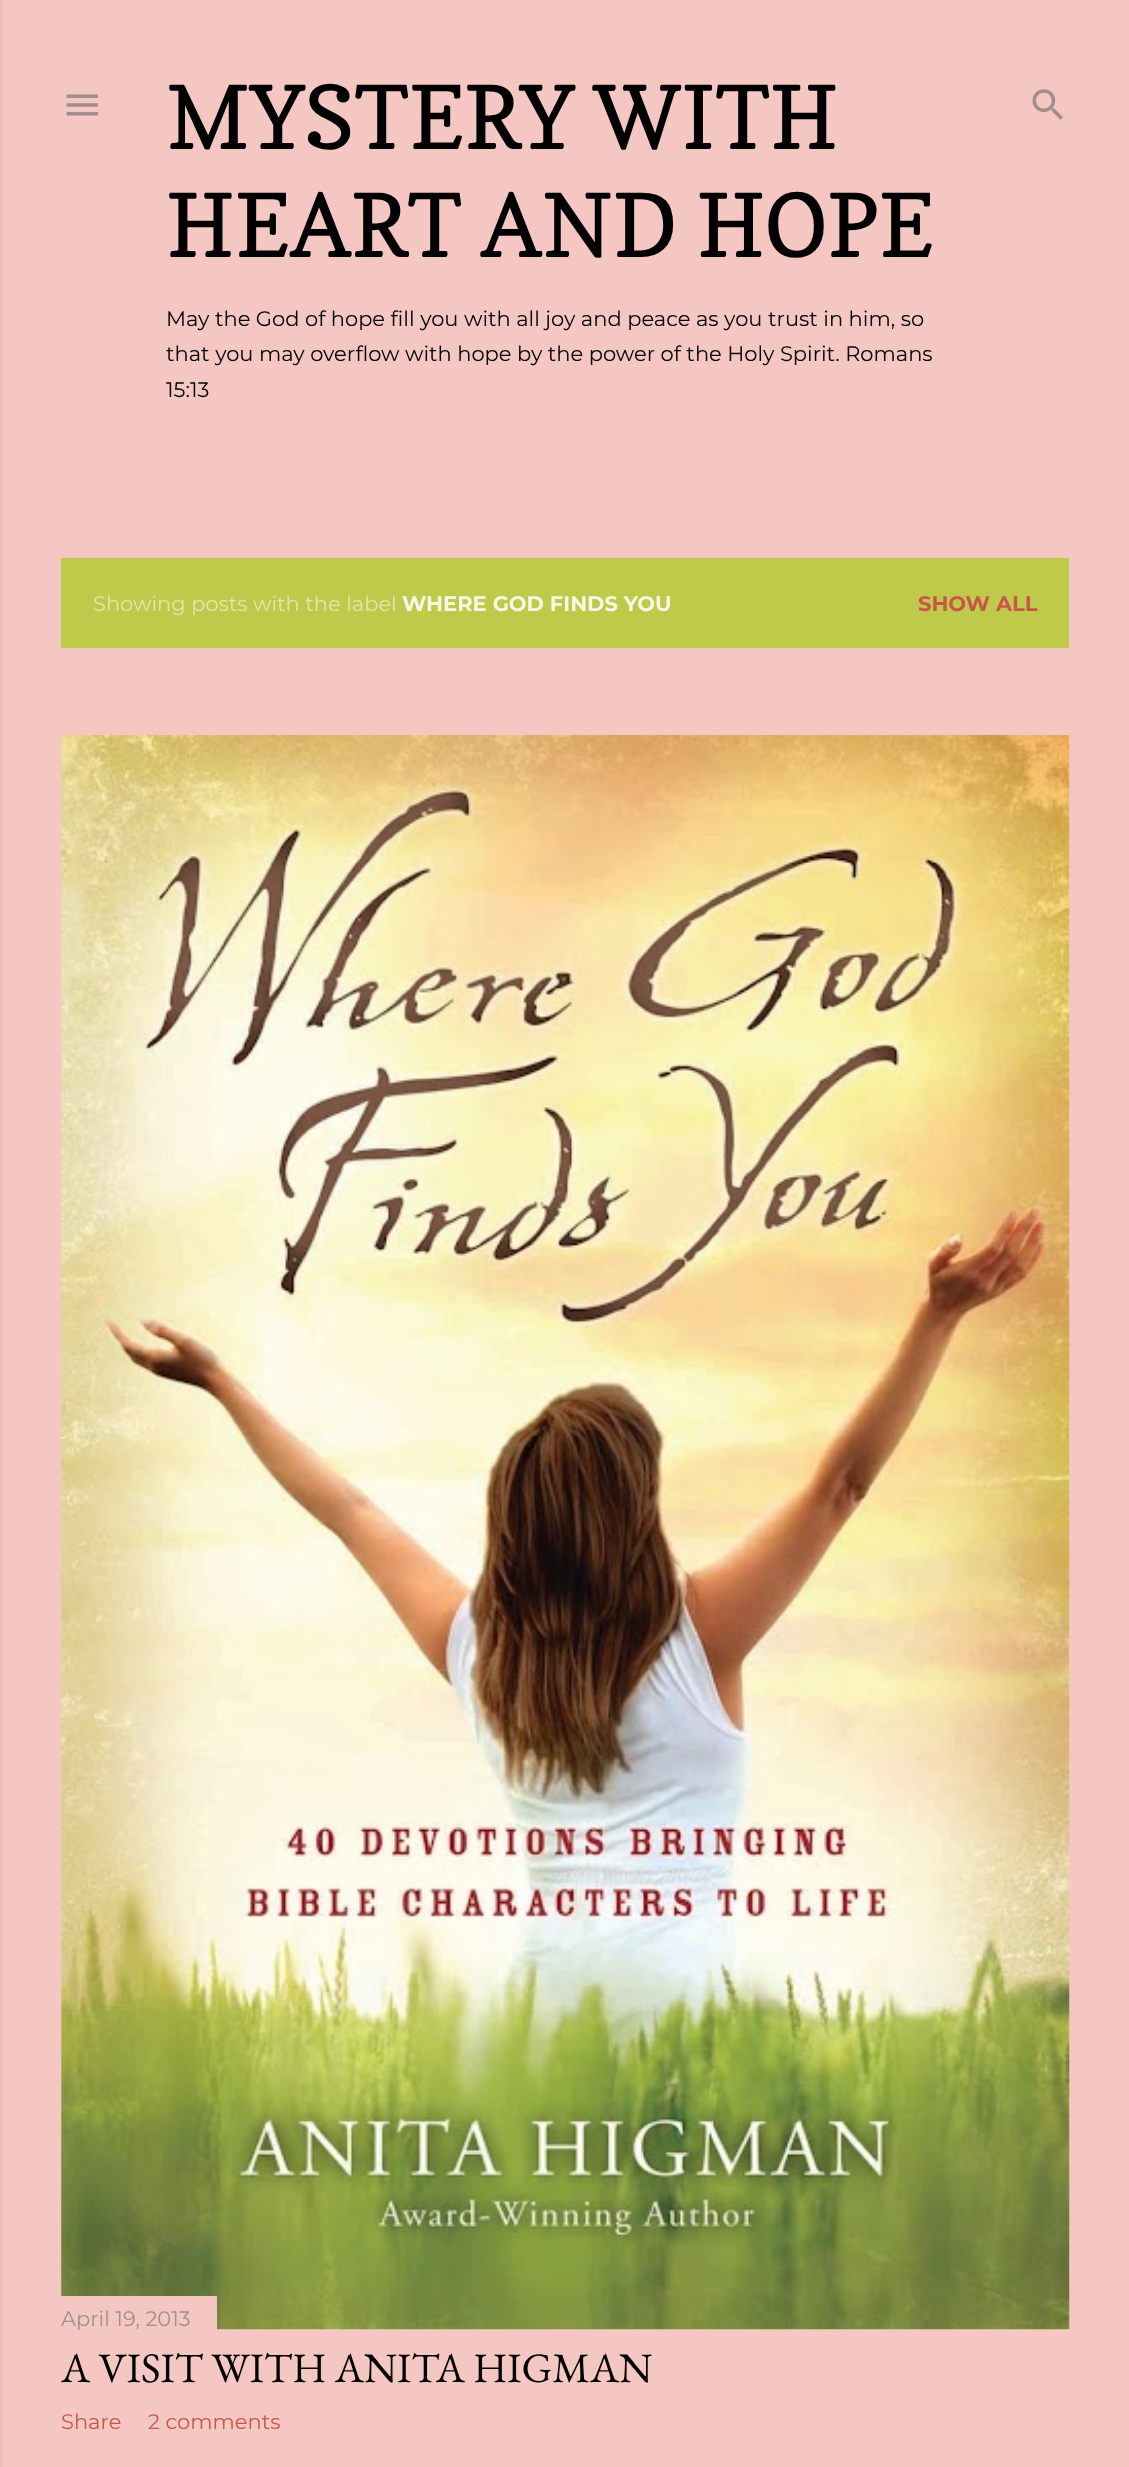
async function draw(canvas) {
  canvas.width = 1129
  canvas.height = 2467
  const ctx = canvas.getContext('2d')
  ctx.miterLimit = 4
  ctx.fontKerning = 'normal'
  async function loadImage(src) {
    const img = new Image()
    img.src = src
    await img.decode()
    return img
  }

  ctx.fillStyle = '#f4c7c3'
  ctx.fillRect(0, 0, 1129, 2467)
  ctx.fillStyle = '#5c5c5c1a'
  ctx.filter = 'blur(2.5px)'
  ctx.beginPath()
  ctx.rect(-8, 0, 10, 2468)
  ctx.fill()
  ctx.filter = 'none'
  ctx.drawImage(await loadImage('image0.png'), 66, 94, 32, 22)
  ctx.font = '87.5px Copse'
  ctx.fillStyle = '#000'
  ctx.fillText('MYSTERY WITH', 166, 149)
  ctx.fillText('HEART AND HOPE', 166, 257)
  ctx.font = '100 21px Montserrat'
  ctx.fillText('May the God of hope fill you with all joy and peace as you trust in him, so', 166, 326)
  ctx.fillText('that you may overflow with hope by the power of the Holy Spirit. Romans', 166, 361)
  ctx.fillText('15:13', 166, 397)
  ctx.drawImage(await loadImage('image1.png'), 1032, 89, 31, 31)
  ctx.fillStyle = '#bfca4b'
  ctx.fillRect(61, 558, 1008, 90)
  ctx.fillStyle = '#e1e6ac'
  ctx.fillText('Showing posts with the label', 93, 611)
  ctx.font = '100 21px "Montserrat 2"'
  ctx.fillStyle = '#f6f8e7'
  ctx.fillText('WHERE GOD FINDS YOU', 402, 611)
  ctx.fillStyle = '#ca564b'
  ctx.fillText('SHOW ALL', 918, 611)
  ctx.drawImage(await loadImage('image2.png'), 61, 735, 1009, 1595)
  ctx.fillStyle = '#f4c7c3'
  ctx.fillRect(61, 2296, 156, 34)
  ctx.font = '100 21px Montserrat'
  ctx.fillStyle = '#a28e8c'
  ctx.fillText('April 19, 2013', 61, 2326)
  ctx.font = '42px EB Garamond'
  ctx.fillStyle = '#000'
  ctx.fillText('A VISIT WITH ANITA HIGMAN', 61, 2382)
  ctx.font = '100 21px Montserrat'
  ctx.fillStyle = '#ca564b'
  ctx.fillText('Share', 61, 2429)
  ctx.fillText('2 comments', 148, 2429)
}

draw(document.querySelector('canvas'))
